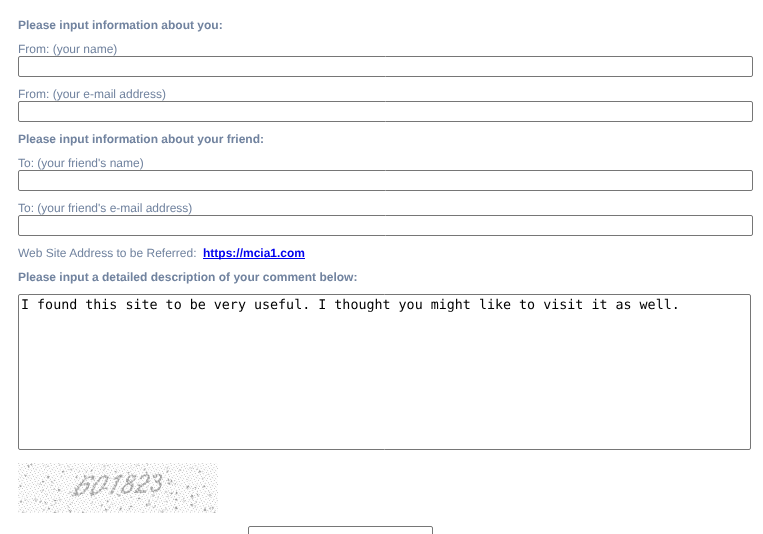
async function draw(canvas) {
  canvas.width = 763
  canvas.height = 534
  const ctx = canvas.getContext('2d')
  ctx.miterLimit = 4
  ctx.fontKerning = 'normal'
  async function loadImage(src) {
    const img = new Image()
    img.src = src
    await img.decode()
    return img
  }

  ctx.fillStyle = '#fff'
  ctx.fillRect(0, 0, 763, 534)
  ctx.font = 'bold 12px Liberation Sans'
  ctx.fillStyle = '#71839f'
  ctx.fillText('Please input information about you:', 18, 29)
  ctx.font = '12px Liberation Sans'
  ctx.fillText('From: (your name)', 18, 53)
  ctx.beginPath()
  ctx.roundRect(18.5, 56.5, 734, 20, 1.5)
  ctx.strokeStyle = '#767676'
  ctx.stroke()
  ctx.fillText('From: (your e-mail address)', 18, 98)
  ctx.beginPath()
  ctx.roundRect(18.5, 101.5, 734, 20, 1.5)
  ctx.stroke()
  ctx.font = 'bold 12px Liberation Sans'
  ctx.fillText('Please input information about your friend:', 18, 143)
  ctx.font = '12px Liberation Sans'
  ctx.fillText('To: (your friend\'s name)', 18, 167)
  ctx.beginPath()
  ctx.roundRect(18.5, 170.5, 734, 20, 1.5)
  ctx.stroke()
  ctx.fillText('To: (your friend\'s e-mail address)', 18, 212)
  ctx.beginPath()
  ctx.roundRect(18.5, 215.5, 734, 20, 1.5)
  ctx.stroke()
  ctx.fillText('Web Site Address to be Referred:', 18, 257)
  ctx.fillStyle = '#00e'
  ctx.fillRect(203, 258, 102, 1)
  ctx.font = 'bold 12px Liberation Sans'
  ctx.fillText('https://mcia1.com', 203, 257)
  ctx.fillStyle = '#71839f'
  ctx.fillText('Please input a detailed description of your comment below:', 18, 281)
  ctx.beginPath()
  ctx.roundRect(18.5, 294.5, 732, 155, 1.5)
  ctx.stroke()
  ctx.font = '13.35px DejaVu Sans Mono'
  ctx.fillStyle = '#000'
  ctx.fillText('I found this site to be very useful. I thought you might like to visit it as well.', 21, 309)
  ctx.drawImage(await loadImage('image0.png'), 18, 463, 200, 50)
  ctx.beginPath()
  ctx.roundRect(248.5, 526.5, 184, 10, 1.5)
  ctx.stroke()
}

draw(document.querySelector('canvas'))
